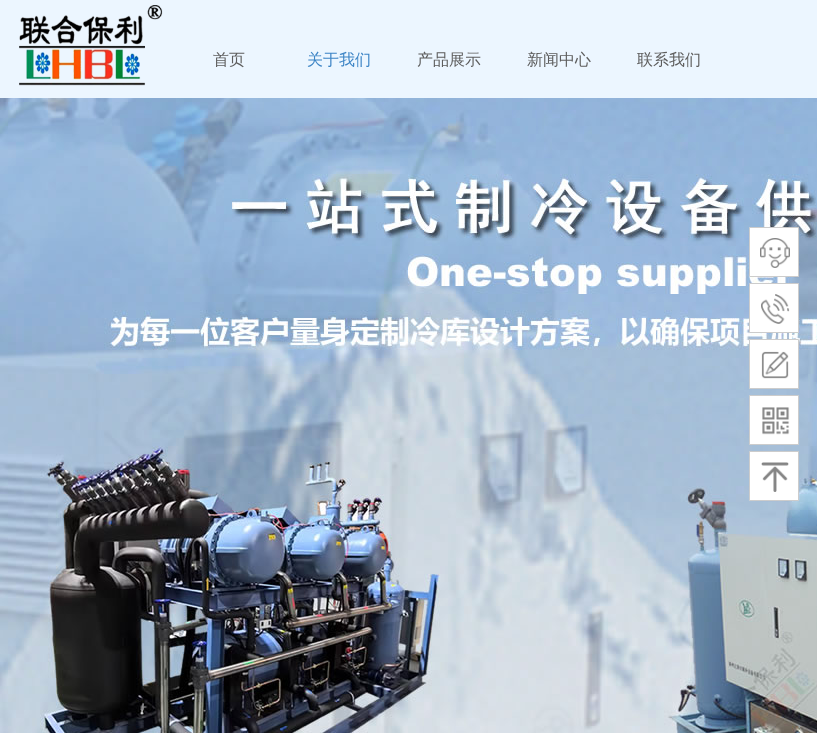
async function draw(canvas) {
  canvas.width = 817
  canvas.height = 733
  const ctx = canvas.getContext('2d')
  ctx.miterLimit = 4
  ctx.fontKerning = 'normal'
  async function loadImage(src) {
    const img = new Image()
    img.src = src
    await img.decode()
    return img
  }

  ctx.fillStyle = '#fff'
  ctx.fillRect(0, 0, 817, 733)
  ctx.fillStyle = '#ecf6ff'
  ctx.fillRect(0, 0, 817, 98)
  ctx.drawImage(await loadImage('image0.png'), 19, 5, 144, 81)
  ctx.font = '500 16px WenQuanYi Zen Hei'
  ctx.fillStyle = '#5d5d5d'
  ctx.fillText('首页', 213, 65)
  ctx.fillStyle = '#3d85c6'
  ctx.fillText('关于我们', 307, 65)
  ctx.fillStyle = '#5d5d5d'
  ctx.fillText('产品展示', 417, 65)
  ctx.fillText('新闻中心', 527, 65)
  ctx.fillText('联系我们', 637, 65)
  ctx.drawImage(await loadImage('image1.png'), 0, 98, 817, 635)
  ctx.fillStyle = '#fff'
  ctx.beginPath()
  ctx.rect(749.5, 227.5, 49, 49)
  ctx.fill()
  ctx.strokeStyle = '#ccc'
  ctx.stroke()
  ctx.drawImage(await loadImage('image2.png'), 760, 238, 30, 30)
  ctx.beginPath()
  ctx.rect(749.5, 283.5, 49, 49)
  ctx.fill()
  ctx.stroke()
  ctx.drawImage(await loadImage('image3.png'), 761, 294, 29, 30)
  ctx.beginPath()
  ctx.rect(749.5, 339.5, 49, 49)
  ctx.fill()
  ctx.stroke()
  ctx.drawImage(await loadImage('image4.png'), 761, 351, 28, 28)
  ctx.beginPath()
  ctx.rect(749.5, 395.5, 49, 49)
  ctx.fill()
  ctx.stroke()
  ctx.drawImage(await loadImage('image5.png'), 762, 407, 28, 28)
  ctx.beginPath()
  ctx.rect(749.5, 451.5, 49, 49)
  ctx.fill()
  ctx.stroke()
  ctx.drawImage(await loadImage('image6.png'), 761, 462, 28, 30)
}

draw(document.querySelector('canvas'))
